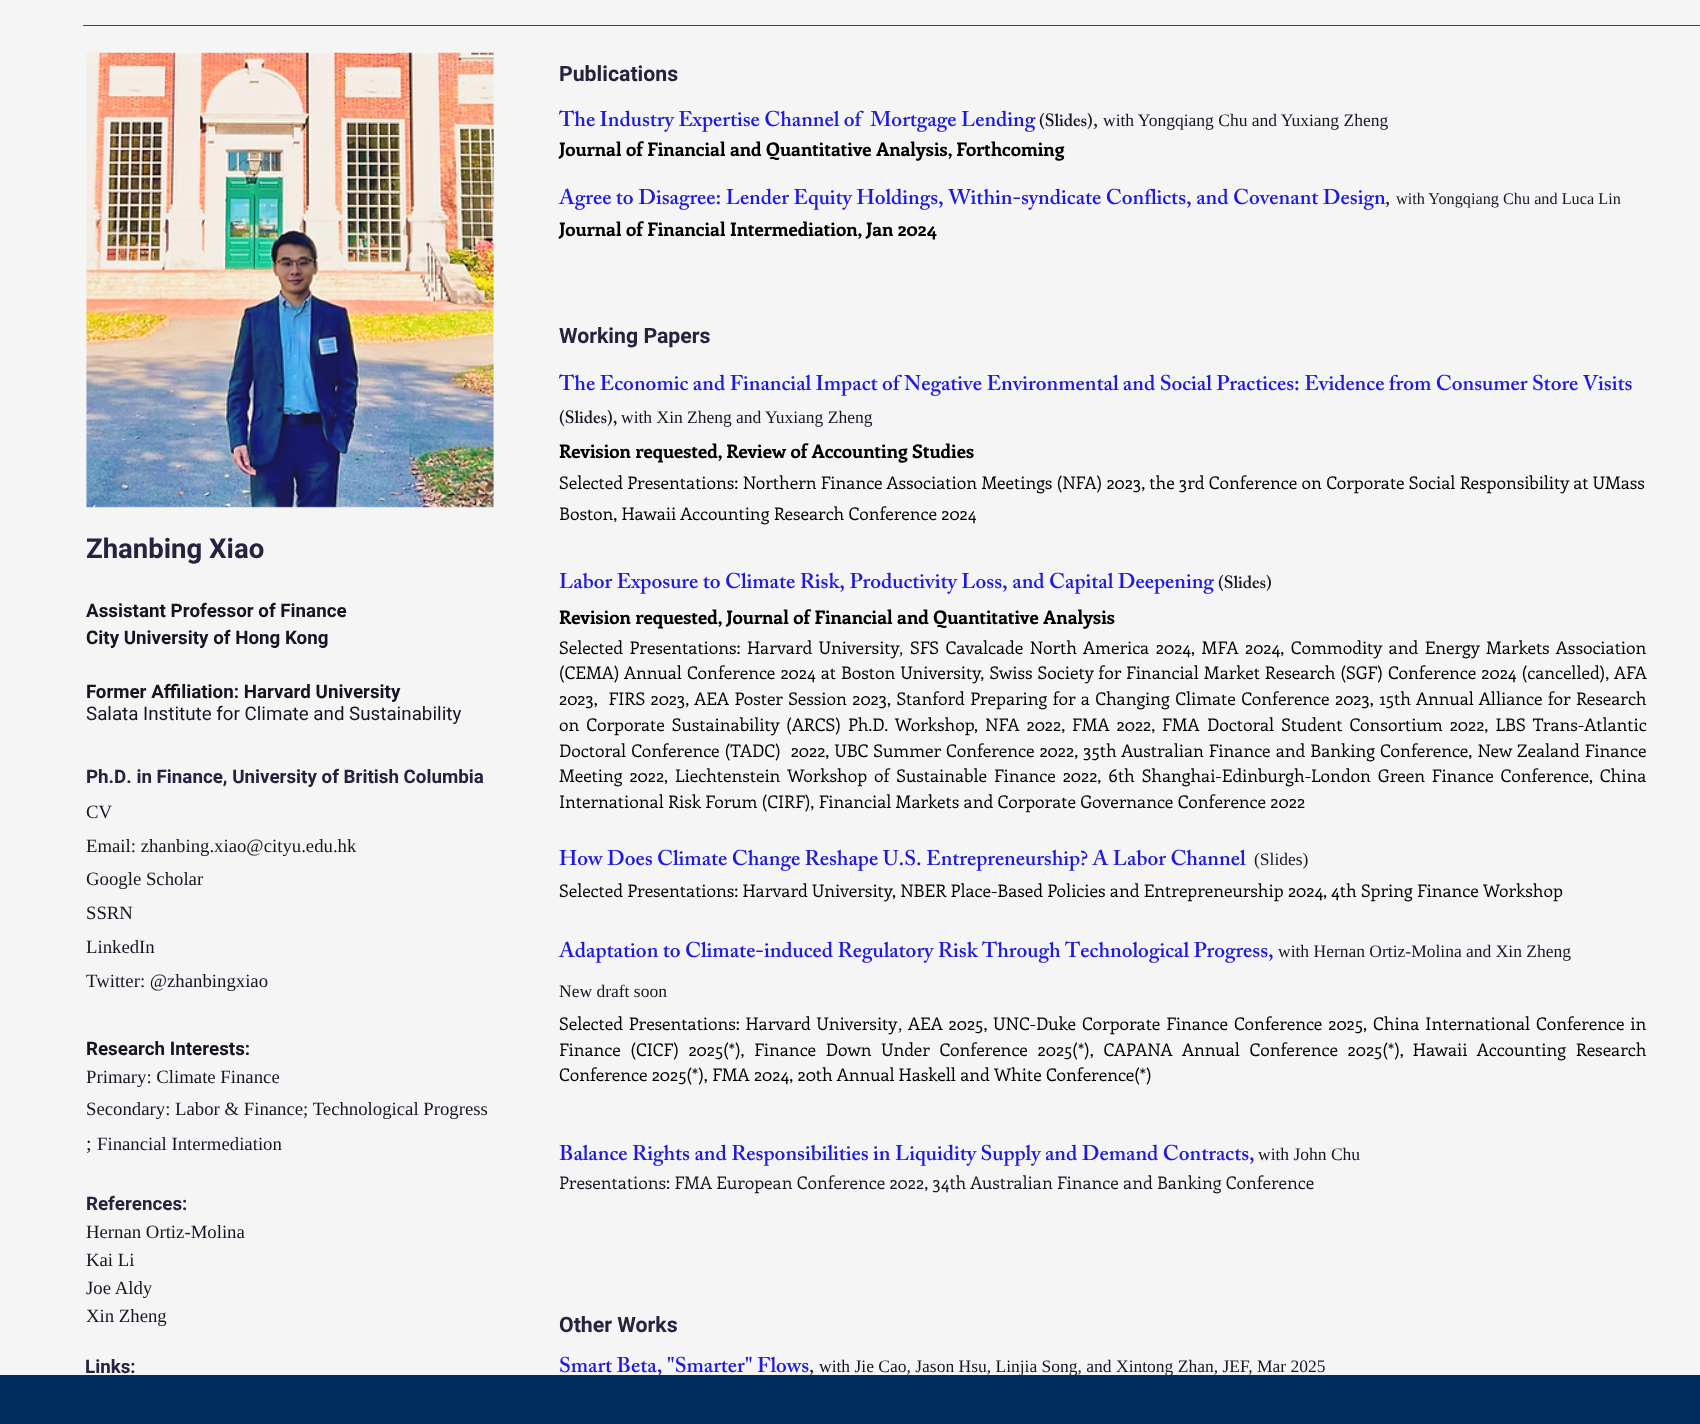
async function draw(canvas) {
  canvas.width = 1700
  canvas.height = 1424
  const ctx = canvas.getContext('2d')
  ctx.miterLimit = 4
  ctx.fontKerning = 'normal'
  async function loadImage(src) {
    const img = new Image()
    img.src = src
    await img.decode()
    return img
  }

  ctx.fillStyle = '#f5f5f5'
  ctx.fillRect(0, 0, 1700, 1424)
  ctx.fillStyle = '#424242'
  ctx.fillRect(83, 25, 1617, 1)
  ctx.drawImage(await loadImage('image0.png'), 86, 52, 408, 456)
  ctx.font = 'bold 21.25px Heebo'
  ctx.fillStyle = '#27223e'
  ctx.fillText('Publications', 559, 81)
  ctx.font = '600 21.25px "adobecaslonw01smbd"'
  ctx.fillStyle = '#1e1bde'
  ctx.fillText('The Industry Expertise Channel of  Mortgage Lending', 559, 126)
  ctx.font = '600 17.5px "adobecaslonw01smbd"'
  ctx.fillStyle = '#171424'
  ctx.fillText('(Slides)', 1039, 126)
  ctx.font = '21.25px Liberation Serif'
  ctx.fillText(',', 1093, 126)
  ctx.font = '17.5px Liberation Serif'
  ctx.fillText('with Yongqiang Chu and Yuxiang Zheng', 1103, 126)
  ctx.font = 'bold 18.75px Enriqueta'
  ctx.fillStyle = '#000'
  ctx.fillText('Journal of Financial and Quantitative Analysis, Forthcoming', 559, 156)
  ctx.font = '600 21.25px "adobecaslonw01smbd"'
  ctx.fillStyle = '#1e1bde'
  ctx.fillText('Agree to Disagree: Lender Equity Holdings, Within-syndicate Conflicts, and Covenant Design', 559, 204)
  ctx.font = '21.25px Liberation Serif'
  ctx.fillStyle = '#171424'
  ctx.fillText(',', 1385, 204)
  ctx.font = '16.25px Liberation Serif'
  ctx.fillText('with Yongqiang Chu and Luca Lin', 1396, 204)
  ctx.font = 'bold 18.75px Enriqueta'
  ctx.fillStyle = '#000'
  ctx.fillText('Journal of Financial Intermediation, Jan 2024', 559, 236)
  ctx.font = 'bold 21.25px Heebo'
  ctx.fillStyle = '#27223e'
  ctx.fillText('Working Papers', 559, 343)
  ctx.font = '600 21.25px "adobecaslonw01smbd"'
  ctx.fillStyle = '#1e1bde'
  ctx.fillText('The Economic and Financial Impact of Negative Environmental and Social Practices: Evidence from Consumer Store Visits', 559, 390)
  ctx.font = '600 17.5px "adobecaslonw01smbd"'
  ctx.fillStyle = '#171424'
  ctx.fillText('(Slides),', 559, 423)
  ctx.font = '17.5px Liberation Serif'
  ctx.fillText('with Xin Zheng', 621, 423)
  ctx.fillText('and', 736, 423)
  ctx.fillText('Yuxiang Zheng', 765, 423)
  ctx.font = 'bold 18.75px Enriqueta'
  ctx.fillStyle = '#000'
  ctx.fillText('Revision requested, Review of Accounting Studies', 559, 458)
  ctx.font = '17.5px Enriqueta'
  ctx.fillText('Selected Presentations: Northern Finance Association Meetings (NFA) 2023, the 3rd Conference on Corporate Social Responsibility at UMass', 559, 489)
  ctx.fillText('Boston, Hawaii Accounting Research Conference 2024', 559, 520)
  ctx.font = '600 21.25px "adobecaslonw01smbd"'
  ctx.fillStyle = '#1e1bde'
  ctx.fillText('Labor Exposure to Climate Risk, Productivity Loss, and Capital Deepening', 559, 588)
  ctx.font = '600 17.5px "adobecaslonw01smbd"'
  ctx.fillStyle = '#171424'
  ctx.fillText('(Slides)', 1218, 588)
  ctx.font = 'bold 18.75px Enriqueta'
  ctx.fillStyle = '#000'
  ctx.fillText('Revision requested, Journal of Financial and Quantitative Analysis', 559, 624)
  ctx.wordSpacing = '2.25px'
  ctx.font = '17.5px Enriqueta'
  ctx.fillText('Selected Presentations: Harvard University', 559, 654)
  ctx.wordSpacing = '0px'
  ctx.font = '17.5px Liberation Serif'
  ctx.fillStyle = '#171424'
  ctx.fillText(',', 899, 654)
  ctx.wordSpacing = '2.25px'
  ctx.font = '17.5px Enriqueta'
  ctx.fillStyle = '#000'
  ctx.fillText('SFS Cavalcade North America 2024, MFA 2024, Commodity and Energy Markets Association', 910, 654)
  ctx.wordSpacing = '0.75px'
  ctx.fillText('(CEMA) Annual Conference 2024 at Boston University, Swiss Society for Financial Market Research (SGF) Conference 2024 (cancelled), AFA', 559, 679)
  ctx.wordSpacing = '1.1px'
  ctx.fillText('2023,  FIRS 2023, AEA Poster Session 2023, Stanford Preparing for a Changing Climate Conference 2023, 15th Annual Alliance for Research', 559, 705)
  ctx.wordSpacing = '2.75px'
  ctx.fillText('on Corporate Sustainability (ARCS) Ph.D. Workshop, NFA 2022,', 559, 731)
  ctx.fillText('FMA 2022,', 1072, 731)
  ctx.wordSpacing = '0px'
  ctx.fillText('FMA', 1162, 731)
  ctx.wordSpacing = '2.75px'
  ctx.fillText('Doctoral Student Consortium 2022, LBS Trans-Atlantic', 1207, 731)
  ctx.wordSpacing = '0.75px'
  ctx.fillText('Doctoral Conference (TADC)  2022, UBC Summer Conference 2022, 35th Australian Finance and Banking Conference, New Zealand Finance', 559, 757)
  ctx.wordSpacing = '2.6px'
  ctx.fillText('Meeting 2022, Liechtenstein Workshop of Sustainable Finance 2022, 6th Shanghai-Edinburgh-London Green Finance Conference, China', 559, 782)
  ctx.wordSpacing = '0px'
  ctx.fillText('International Risk Forum (CIRF), Financial Markets and Corporate Governance Conference 2022', 559, 808)
  ctx.font = '600 21.25px "adobecaslonw01smbd"'
  ctx.fillStyle = '#1e1bde'
  ctx.fillText('How Does Climate Change Reshape U.S. Entrepreneurship? A Labor Channel', 559, 865)
  ctx.font = '17.5px Liberation Serif'
  ctx.fillStyle = '#171424'
  ctx.fillText('(Slides)', 1254, 865)
  ctx.font = '17.5px Enriqueta'
  ctx.fillStyle = '#000'
  ctx.fillText('Selected Presentations: Harvard University, NBER Place-Based Policies and Entrepreneurship 2024, 4th Spring Finance Workshop', 559, 897)
  ctx.font = '600 21.25px "adobecaslonw01smbd"'
  ctx.fillStyle = '#1e1bde'
  ctx.fillText('Adaptation to Climate-induced Regulatory Risk Through Technological Progress,', 559, 957)
  ctx.font = '17.5px Liberation Serif'
  ctx.fillStyle = '#171424'
  ctx.fillText('with Hernan Ortiz-Molina and Xin Zheng', 1278, 957)
  ctx.fillText('New draft soon', 559, 997)
  ctx.wordSpacing = '1.5px'
  ctx.font = '17.5px Enriqueta'
  ctx.fillStyle = '#000'
  ctx.fillText('Selected Presentations: Harvard University', 559, 1030)
  ctx.wordSpacing = '0px'
  ctx.font = '17.5px Liberation Serif'
  ctx.fillStyle = '#171424'
  ctx.fillText(',', 898, 1030)
  ctx.wordSpacing = '1.6px'
  ctx.font = '17.5px Enriqueta'
  ctx.fillStyle = '#000'
  ctx.fillText('AEA 2025, UNC-Duke Corporate Finance Conference 2025, China International Conference in', 908, 1030)
  ctx.wordSpacing = '5.4px'
  ctx.fillText('Finance (CICF) 2025(*), Finance Down Under Conference 2025(*), CAPANA Annual Conference 2025(*),', 559, 1056)
  ctx.fillText('Hawaii Accounting Research', 1413, 1056)
  ctx.wordSpacing = '0px'
  ctx.fillText('Conference 2025(*), FMA 2024, 20th Annual Haskell and White Conference(*)', 559, 1081)
  ctx.font = '600 21.25px "adobecaslonw01smbd"'
  ctx.fillStyle = '#1e1bde'
  ctx.fillText('Balance Rights and Responsibilities in Liquidity Supply and Demand Contracts,', 559, 1160)
  ctx.font = '17.5px Liberation Serif'
  ctx.fillStyle = '#171424'
  ctx.fillText('with John Chu', 1258, 1160)
  ctx.font = '17.5px Enriqueta'
  ctx.fillText('Presentations: FMA European Conference 2022, 34th Australian Finance and Banking Conference', 559, 1189)
  ctx.font = 'bold 21.25px Heebo'
  ctx.fillStyle = '#27223e'
  ctx.fillText('Other Works', 559, 1332)
  ctx.font = '600 21.25px "adobecaslonw01smbd"'
  ctx.fillStyle = '#1e1bde'
  ctx.fillText('Smart Beta, "Smarter" Flows', 559, 1372)
  ctx.font = '21.25px Liberation Serif'
  ctx.fillStyle = '#171424'
  ctx.fillText(',', 809, 1372)
  ctx.font = '17.5px Liberation Serif'
  ctx.fillText('with Jie Cao, Jason Hsu, Linjia Song, and Xintong Zhan, JEF, Mar 2025', 819, 1372)
  ctx.font = 'bold 27.5px Heebo'
  ctx.fillStyle = '#27223e'
  ctx.fillText('Zhanbing Xiao', 86, 558)
  ctx.font = 'bold 18.75px "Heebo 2"'
  ctx.fillStyle = '#171424'
  ctx.fillText('Assistant Professor of Finance', 86, 617)
  ctx.fillText('City University of Hong Kong', 86, 644)
  ctx.fillText('Former Affiliation: Harvard University', 86, 698)
  ctx.font = '18.75px Heebo'
  ctx.fillText('Salata Institute for Climate and Sustainability', 86, 720)
  ctx.font = 'bold 18.75px "Heebo 2"'
  ctx.fillStyle = '#27223e'
  ctx.fillText('Ph.D. in Finance, University of British Columbia', 86, 783)
  ctx.font = '18.75px Liberation Serif'
  ctx.fillStyle = '#171424'
  ctx.fillText('CV', 86, 818)
  ctx.fillText('Email: zhanbing.xiao@cityu.edu.hk', 86, 852)
  ctx.fillText('Google Scholar', 86, 885)
  ctx.fillText('SSRN', 86, 919)
  ctx.fillText('LinkedIn', 86, 953)
  ctx.fillText('Twitter: @zhanbingxiao', 86, 987)
  ctx.font = 'bold 18.75px "Heebo 2"'
  ctx.fillText('Research Interests:', 86, 1055)
  ctx.font = '18.75px Liberation Serif'
  ctx.fillText('Primary: Climate Finance', 86, 1083)
  ctx.fillText('Secondary: Labor & Finance; Technological Progress', 86, 1115)
  ctx.font = '20px Liberation Serif'
  ctx.fillText(';', 86, 1150)
  ctx.font = '18.75px Liberation Serif'
  ctx.fillText('Financial Intermediation', 97, 1150)
  ctx.font = 'bold 18.75px "Heebo 2"'
  ctx.fillStyle = '#27223e'
  ctx.fillText('References:', 86, 1210)
  ctx.font = '18.75px Liberation Serif'
  ctx.fillStyle = '#171424'
  ctx.fillText('Hernan Ortiz-Molina', 86, 1238)
  ctx.fillText('Kai Li', 86, 1266)
  ctx.fillText('Joe Aldy', 86, 1294)
  ctx.fillText('Xin Zheng', 86, 1322)
  ctx.font = 'bold 18.75px Heebo'
  ctx.fillStyle = '#27223e'
  ctx.fillText('Links:', 85, 1373)
  ctx.fillStyle = '#002e5d'
  ctx.fillRect(0, 1375, 1700, 49)
}

draw(document.querySelector('canvas'))
